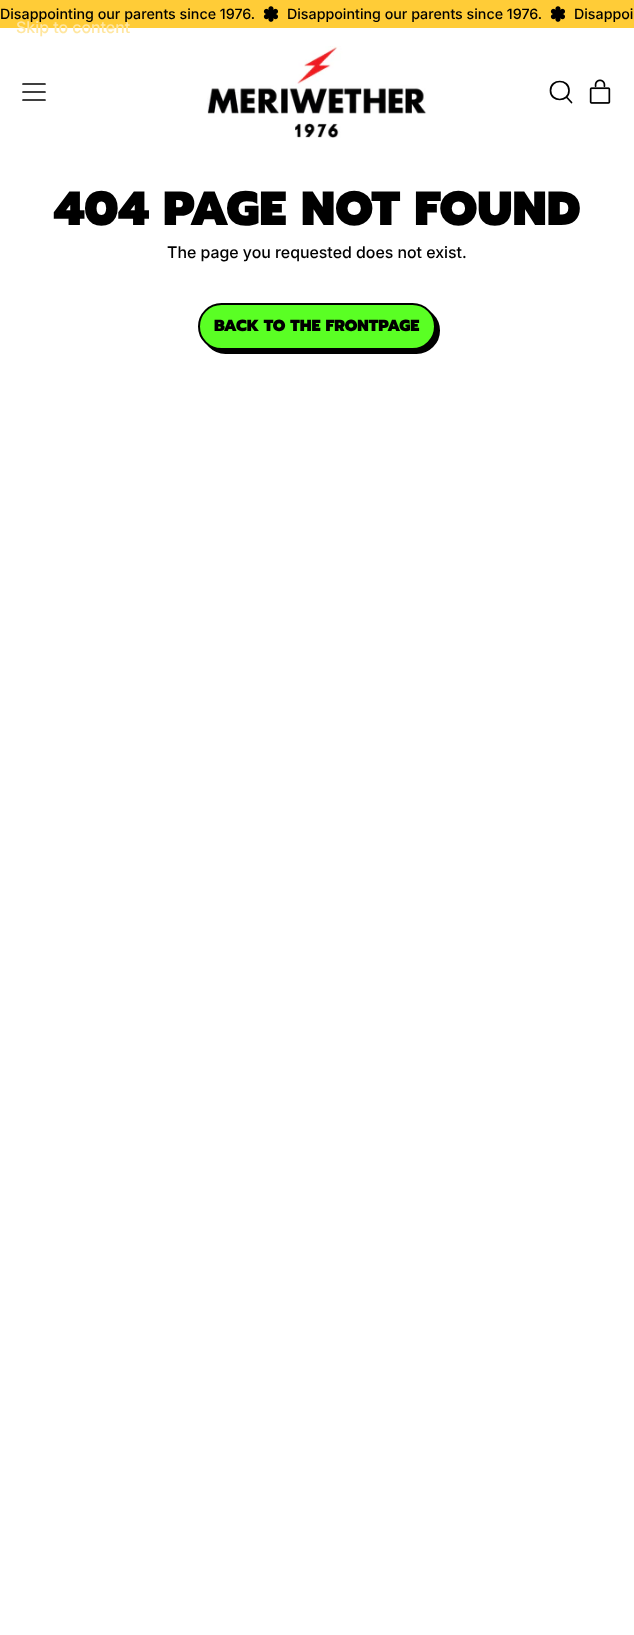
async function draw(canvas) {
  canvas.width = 634
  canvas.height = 1635
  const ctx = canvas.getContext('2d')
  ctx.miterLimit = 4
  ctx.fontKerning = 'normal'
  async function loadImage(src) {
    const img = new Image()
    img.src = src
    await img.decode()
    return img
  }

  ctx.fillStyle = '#fff'
  ctx.fillRect(0, 0, 634, 1635)
  ctx.fillStyle = '#ffcc37'
  ctx.fillRect(0, 0, 634, 28)
  ctx.font = '500 14.25px Inter'
  ctx.fillStyle = '#000'
  ctx.fillText('Disappointing our parents since 1976.', 0, 19)
  ctx.drawImage(await loadImage('image0.png'), 263, 6, 15, 16)
  ctx.fillText('Disappointing our parents since 1976.', 287, 19)
  ctx.drawImage(await loadImage('image0.png'), 550, 6, 15, 16)
  ctx.fillText('Disappoi', 574, 19)
  ctx.font = '500 16px "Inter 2"'
  ctx.fillStyle = '#ffe69f'
  ctx.fillText('Skip to content', 16, 33)
  ctx.beginPath()
  ctx.moveTo(45, 100)
  ctx.lineTo(23, 100)
  ctx.moveTo(45, 92)
  ctx.lineTo(23, 92)
  ctx.moveTo(45, 84)
  ctx.lineTo(23, 84)
  ctx.strokeStyle = '#000'
  ctx.lineWidth = 1.7
  ctx.lineCap = 'round'
  ctx.lineJoin = 'round'
  ctx.stroke()
  ctx.drawImage(await loadImage('image1.png'), 207, 46, 220, 92)
  ctx.beginPath()
  ctx.moveTo(550.5, 90.5)
  ctx.bezierCurveTo(550.5, 102.5, 569, 102.5, 569, 90.5)
  ctx.bezierCurveTo(569, 78.5, 550.5, 78.5, 550.5, 90.5)
  ctx.closePath()
  ctx.moveTo(571.5, 102.5)
  ctx.lineTo(566.5, 97)
  ctx.stroke()
  ctx.drawImage(await loadImage('image2.png'), 589, 79, 22, 25)
  ctx.font = '900 48px Prompt'
  ctx.fillStyle = '#000'
  ctx.fillText('404 PAGE NOT FOUND', 54, 225)
  ctx.font = '500 16px "Inter 2"'
  ctx.fillText('The page you requested does not exist.', 167, 258)
  ctx.beginPath()
  ctx.roundRect(203, 308, 236, 45, 22.5)
  ctx.fill()
  ctx.lineWidth = 2
  ctx.lineJoin = 'miter'
  ctx.stroke()
  ctx.fillStyle = '#5aff24'
  ctx.beginPath()
  ctx.roundRect(199, 304, 236, 45, 22.5)
  ctx.fill()
  ctx.stroke()
  ctx.font = '900 16px Prompt'
  ctx.fillStyle = '#000'
  ctx.fillText('BACK TO THE FRONTPAGE', 214, 331)
}

draw(document.querySelector('canvas'))
